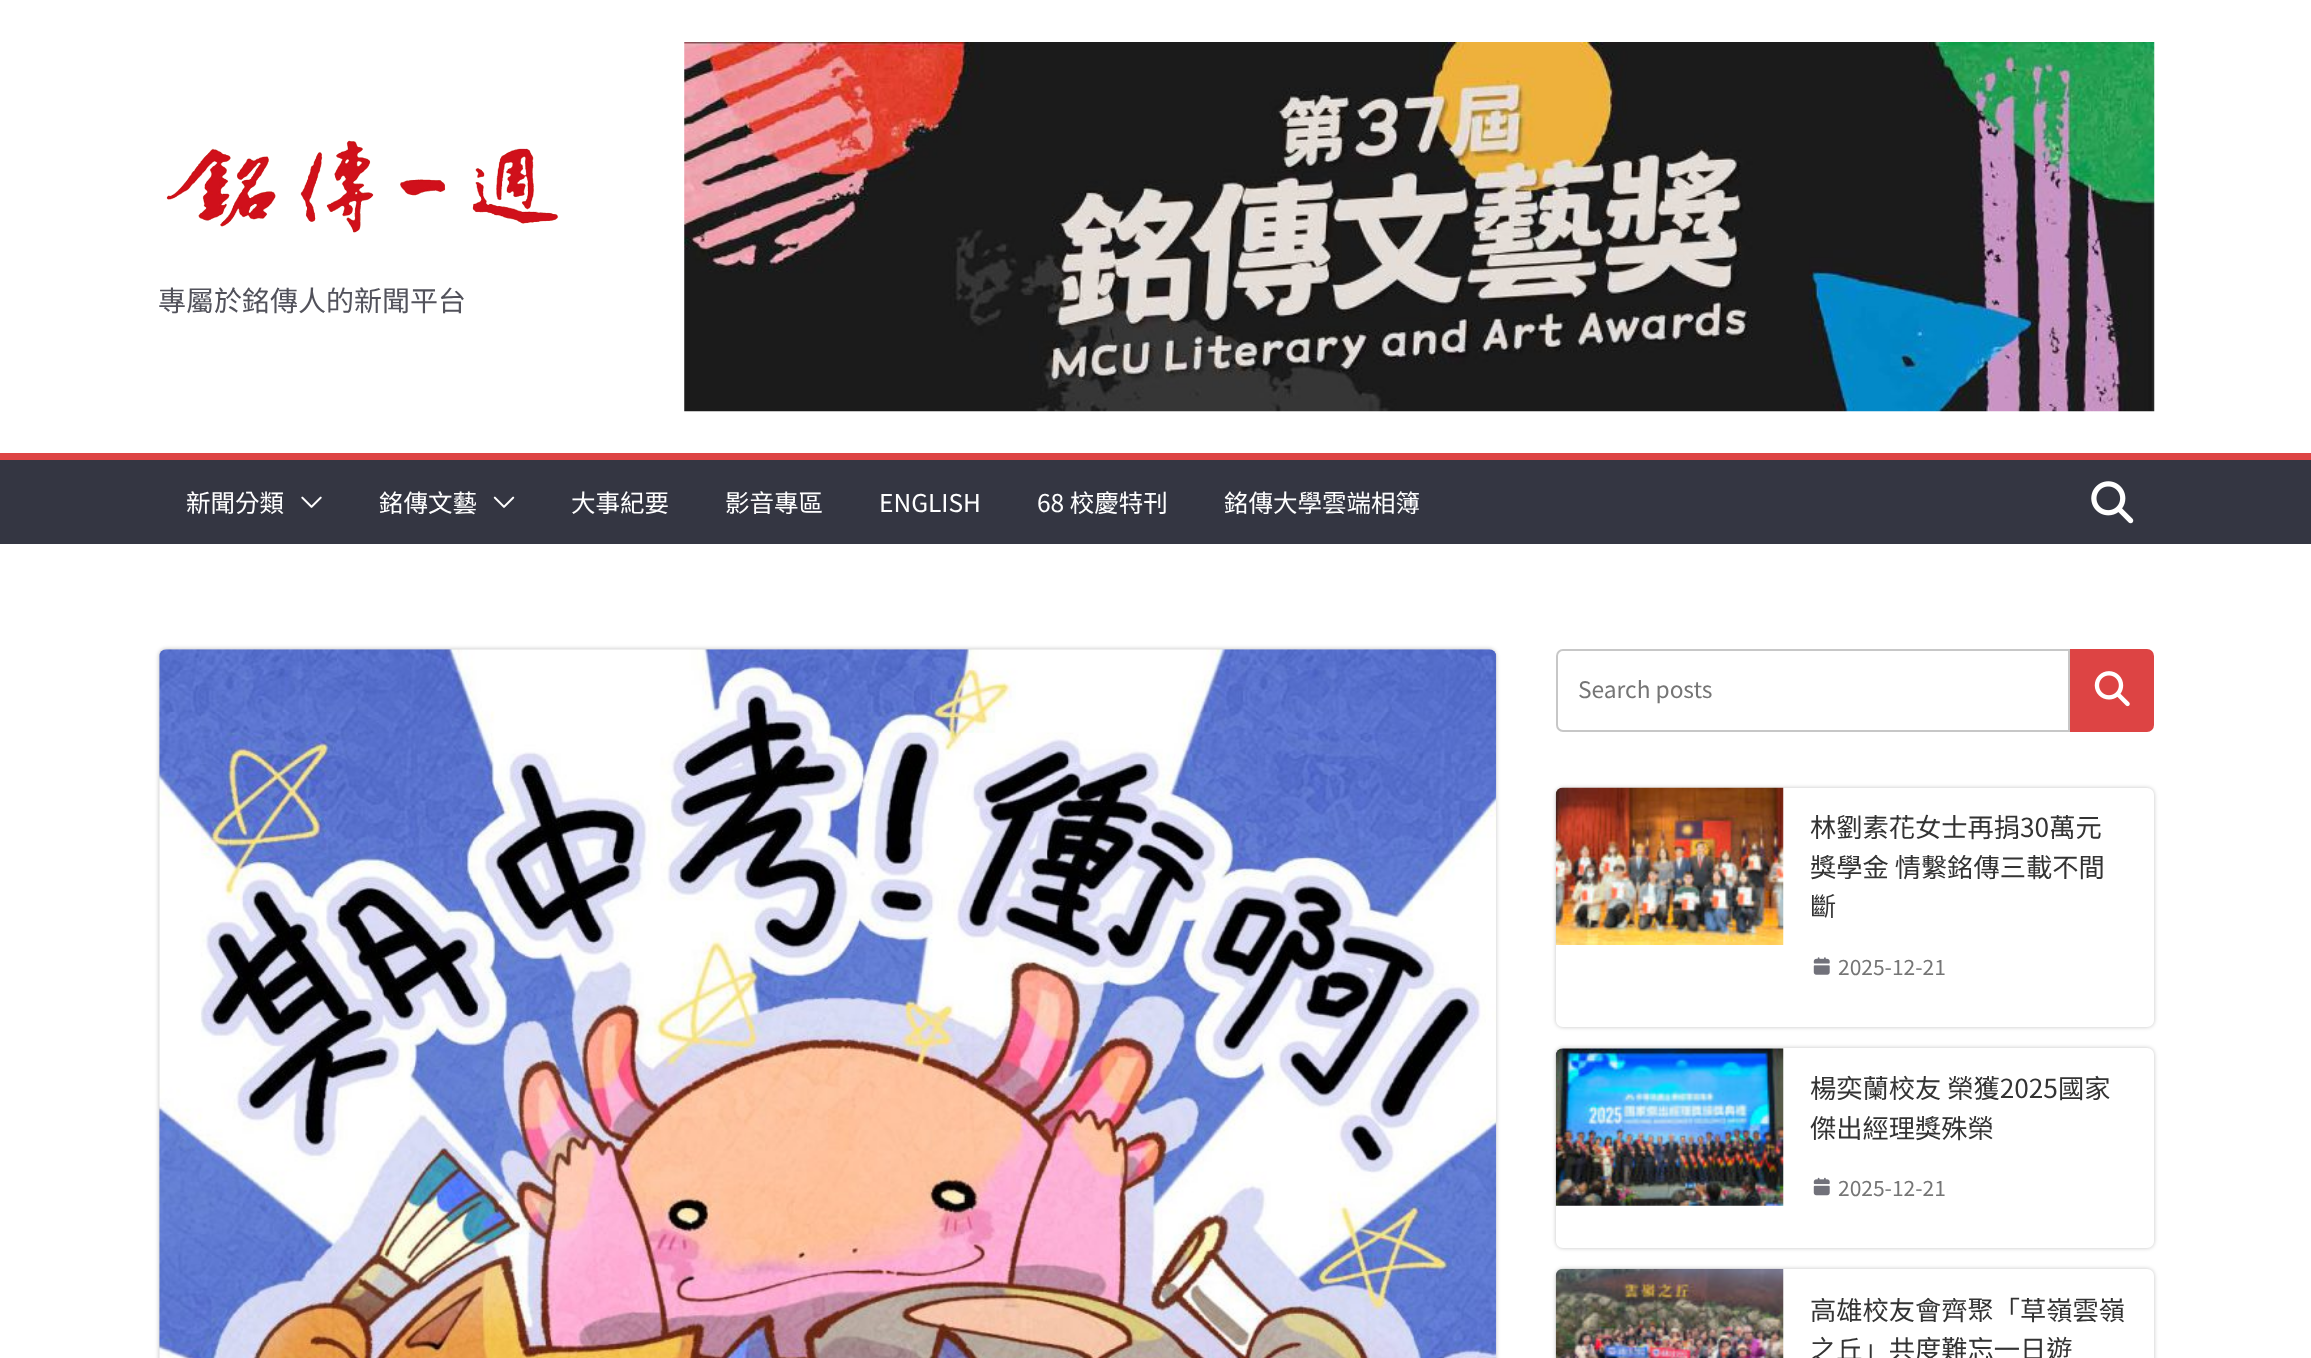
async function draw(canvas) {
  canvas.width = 2311
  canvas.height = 1358
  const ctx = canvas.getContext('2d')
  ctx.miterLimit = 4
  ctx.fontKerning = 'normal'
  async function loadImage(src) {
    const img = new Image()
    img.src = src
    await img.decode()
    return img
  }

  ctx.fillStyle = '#fff'
  ctx.fillRect(0, 0, 2311, 1358)
  ctx.drawImage(await loadImage('image0.png'), 166, 140, 393, 93)
  ctx.font = '28px Noto Sans TC'
  ctx.fillStyle = '#52525b'
  ctx.fillText('專屬於銘傳人的新聞平台', 158, 311)
  ctx.drawImage(await loadImage('image1.png'), 684, 42, 1471, 370)
  ctx.fillStyle = '#343642'
  ctx.fillRect(0, 460, 2311, 84)
  ctx.fillStyle = '#d44'
  ctx.fillRect(0, 453, 2311, 7)
  ctx.font = '24.5px Noto Sans TC'
  ctx.fillStyle = '#fff'
  ctx.fillText('新聞分類', 186, 512)
  ctx.drawImage(await loadImage('image2.png'), 301, 496, 21, 12)
  ctx.fillText('銘傳文藝', 379, 512)
  ctx.drawImage(await loadImage('image3.png'), 493, 496, 22, 12)
  ctx.fillText('大事紀要', 571, 512)
  ctx.fillText('影音專區', 725, 512)
  ctx.fillText('ENGLISH', 879, 512)
  ctx.fillText('68 校慶特刊', 1037, 512)
  ctx.fillText('銘傳大學雲端相簿', 1224, 512)
  ctx.drawImage(await loadImage('image4.png'), 2091, 481, 43, 43)
  ctx.fillStyle = '#0000003d'
  ctx.filter = 'blur(2px)'
  ctx.beginPath()
  ctx.roundRect(159, 649, 1337, 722, 7)
  ctx.fill()
  ctx.filter = 'none'
  ctx.drawImage(await loadImage('image5.png'), 159, 649, 1338, 709)
  ctx.beginPath()
  ctx.roundRect(1557, 650, 512, 81, [6, 0, 0, 6])
  ctx.strokeStyle = '#c7c7c7'
  ctx.lineWidth = 2
  ctx.stroke()
  ctx.font = '22.75px Noto Sans TC'
  ctx.fillStyle = '#757575'
  ctx.fillText('Search posts', 1578, 698)
  ctx.fillStyle = '#d44'
  ctx.beginPath()
  ctx.roundRect(2070, 649, 84, 83, [0, 7, 7, 0])
  ctx.fill()
  ctx.drawImage(await loadImage('image6.png'), 2094, 671, 36, 36)
  ctx.save()
  ctx.beginPath()
  ctx.moveTo(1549, 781)
  ctx.lineTo(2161, 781)
  ctx.lineTo(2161, 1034)
  ctx.lineTo(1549, 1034)
  ctx.closePath()
  ctx.moveTo(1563, 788)
  ctx.lineTo(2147, 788)
  ctx.bezierCurveTo(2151, 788, 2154, 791, 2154, 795)
  ctx.lineTo(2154, 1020)
  ctx.bezierCurveTo(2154, 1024, 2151, 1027, 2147, 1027)
  ctx.lineTo(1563, 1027)
  ctx.bezierCurveTo(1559, 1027, 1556, 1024, 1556, 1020)
  ctx.lineTo(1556, 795)
  ctx.bezierCurveTo(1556, 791, 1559, 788, 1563, 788)
  ctx.closePath()
  ctx.clip('evenodd')
  ctx.fillStyle = '#0000003d'
  ctx.filter = 'blur(2px)'
  ctx.beginPath()
  ctx.roundRect(1556, 788, 598, 239, 7)
  ctx.fill()
  ctx.filter = 'none'
  ctx.restore()
  ctx.drawImage(await loadImage('image7.png'), 1555, 787, 229, 158)
  ctx.font = '26.25px Noto Sans TC'
  ctx.fillStyle = '#333'
  ctx.fillText('林劉素花女士再捐30萬元', 1810, 837)
  ctx.fillText('獎學金 情繫銘傳三載不間', 1810, 877)
  ctx.fillText('斷', 1810, 916)
  ctx.drawImage(await loadImage('image8.png'), 1813, 957, 17, 18)
  ctx.font = '21px Noto Sans TC'
  ctx.fillStyle = '#757575'
  ctx.fillText('2025-12-21', 1838, 975)
  ctx.save()
  ctx.beginPath()
  ctx.moveTo(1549, 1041)
  ctx.lineTo(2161, 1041)
  ctx.lineTo(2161, 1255)
  ctx.lineTo(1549, 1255)
  ctx.closePath()
  ctx.moveTo(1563, 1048)
  ctx.lineTo(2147, 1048)
  ctx.bezierCurveTo(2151, 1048, 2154, 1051, 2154, 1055)
  ctx.lineTo(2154, 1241)
  ctx.bezierCurveTo(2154, 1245, 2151, 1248, 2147, 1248)
  ctx.lineTo(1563, 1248)
  ctx.bezierCurveTo(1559, 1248, 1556, 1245, 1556, 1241)
  ctx.lineTo(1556, 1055)
  ctx.bezierCurveTo(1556, 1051, 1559, 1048, 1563, 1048)
  ctx.closePath()
  ctx.clip('evenodd')
  ctx.fillStyle = '#0000003d'
  ctx.filter = 'blur(2px)'
  ctx.beginPath()
  ctx.roundRect(1556, 1048, 598, 200, 7)
  ctx.fill()
  ctx.filter = 'none'
  ctx.restore()
  ctx.drawImage(await loadImage('image9.png'), 1555, 1048, 229, 158)
  ctx.font = '26.25px Noto Sans TC'
  ctx.fillStyle = '#333'
  ctx.fillText('楊奕蘭校友 榮獲2025國家', 1810, 1098)
  ctx.fillText('傑出經理獎殊榮', 1810, 1138)
  ctx.drawImage(await loadImage('image10.png'), 1813, 1177, 17, 19)
  ctx.font = '21px Noto Sans TC'
  ctx.fillStyle = '#757575'
  ctx.fillText('2025-12-21', 1838, 1196)
  ctx.save()
  ctx.beginPath()
  ctx.moveTo(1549, 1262)
  ctx.lineTo(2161, 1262)
  ctx.lineTo(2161, 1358)
  ctx.lineTo(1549, 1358)
  ctx.closePath()
  ctx.moveTo(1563, 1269)
  ctx.lineTo(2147, 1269)
  ctx.bezierCurveTo(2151, 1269, 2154, 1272, 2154, 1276)
  ctx.lineTo(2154, 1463)
  ctx.bezierCurveTo(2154, 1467, 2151, 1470, 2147, 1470)
  ctx.lineTo(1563, 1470)
  ctx.bezierCurveTo(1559, 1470, 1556, 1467, 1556, 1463)
  ctx.lineTo(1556, 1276)
  ctx.bezierCurveTo(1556, 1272, 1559, 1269, 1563, 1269)
  ctx.closePath()
  ctx.clip('evenodd')
  ctx.fillStyle = '#0000003d'
  ctx.filter = 'blur(2px)'
  ctx.beginPath()
  ctx.roundRect(1556, 1269, 598, 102, 7)
  ctx.fill()
  ctx.filter = 'none'
  ctx.restore()
  ctx.drawImage(await loadImage('image11.png'), 1555, 1268, 229, 90)
  ctx.font = '26.25px Noto Sans TC'
  ctx.fillStyle = '#333'
  ctx.fillText('高雄校友會齊聚「草嶺雲嶺', 1810, 1320)
  ctx.fillText('之丘」共度難忘一日遊', 1810, 1359)
}

draw(document.querySelector('canvas'))
